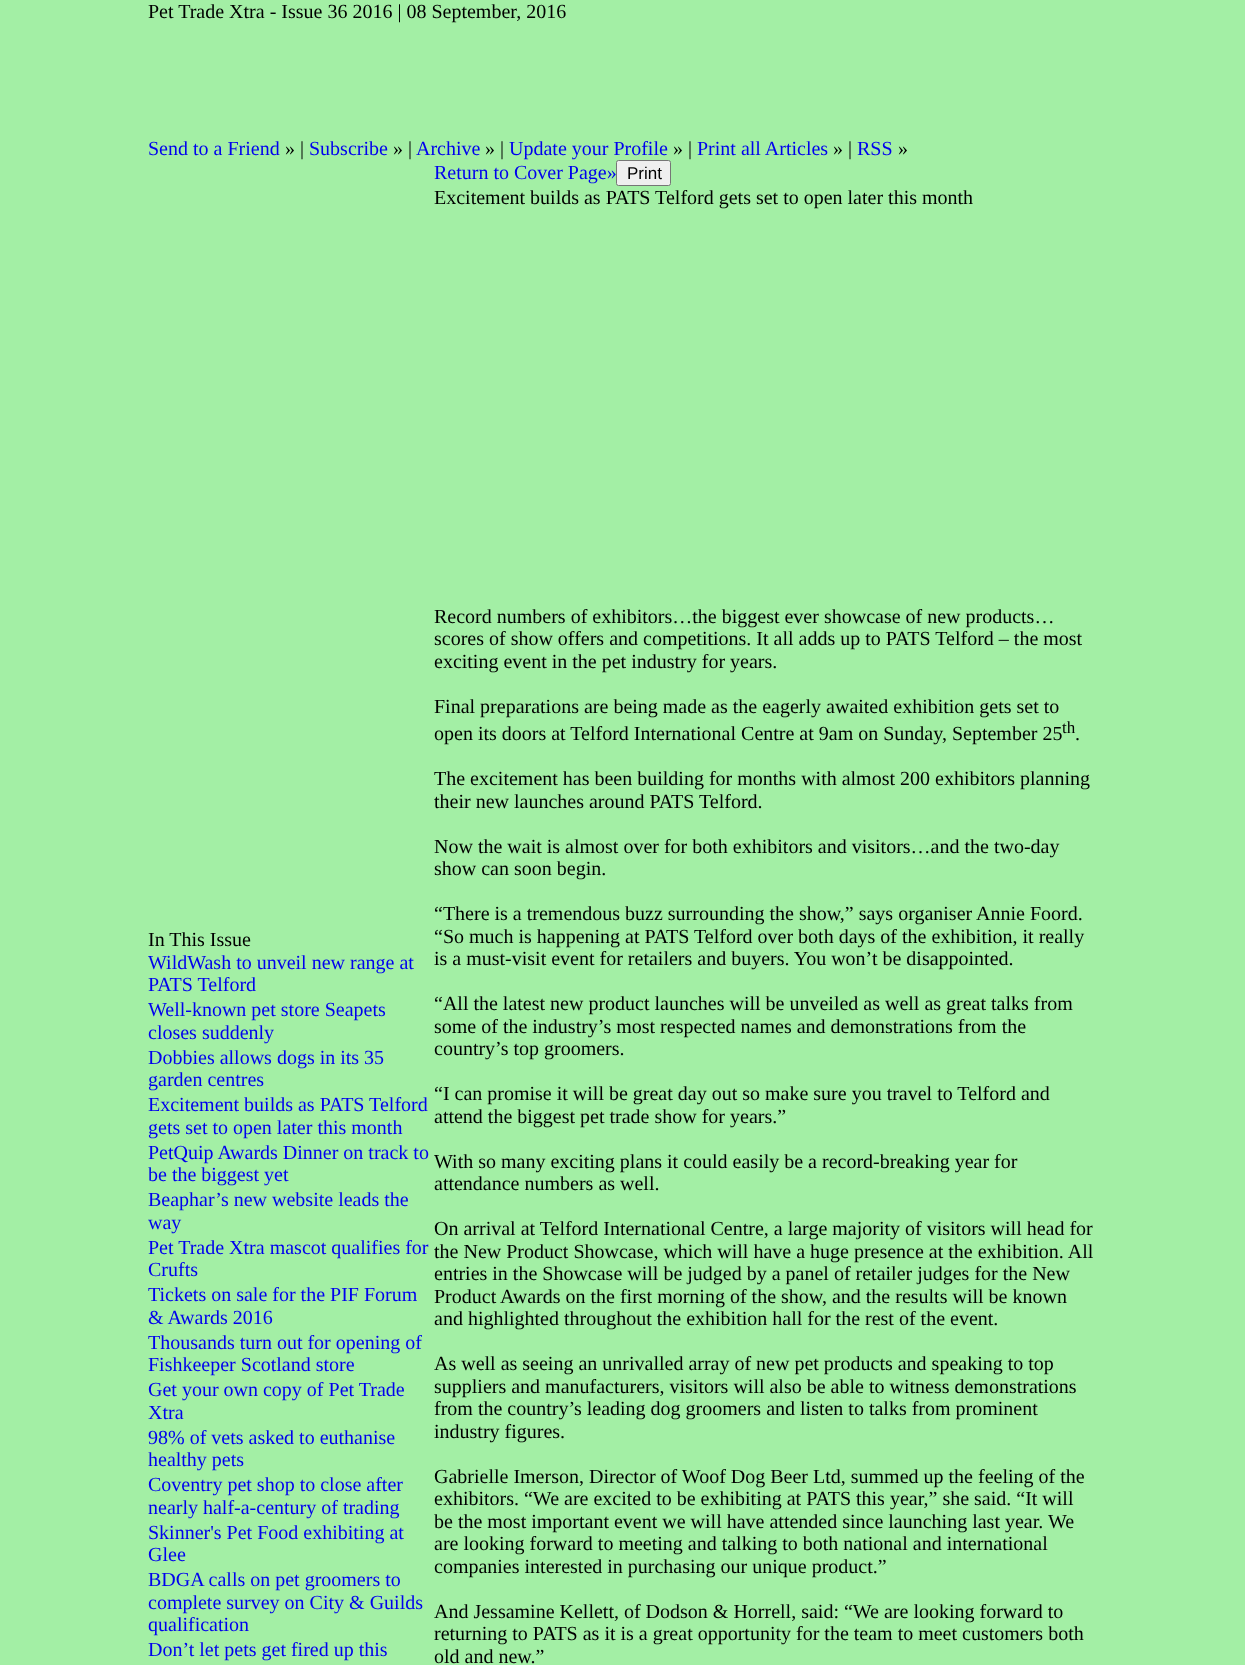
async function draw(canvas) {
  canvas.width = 1245
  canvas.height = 1665
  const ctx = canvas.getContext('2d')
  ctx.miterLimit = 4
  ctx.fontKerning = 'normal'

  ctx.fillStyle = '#a3efa5'
  ctx.fillRect(0, 0, 1245, 1665)
  ctx.font = '20px Liberation Serif'
  ctx.fillStyle = '#000'
  ctx.fillText('Pet Trade Xtra - Issue 36 2016 | 08 September, 2016', 148, 18)
  ctx.fillStyle = '#00e'
  ctx.fillText('Send to a Friend', 148, 155)
  ctx.fillStyle = '#000'
  ctx.fillText('» |', 285, 155)
  ctx.fillStyle = '#00e'
  ctx.fillText('Subscribe', 309, 155)
  ctx.fillStyle = '#000'
  ctx.fillText('» |', 393, 155)
  ctx.fillStyle = '#00e'
  ctx.fillText('Archive', 416, 155)
  ctx.fillStyle = '#000'
  ctx.fillText('» |', 485, 155)
  ctx.fillStyle = '#00e'
  ctx.fillText('Update your Profile', 509, 155)
  ctx.fillStyle = '#000'
  ctx.fillText('» |', 673, 155)
  ctx.fillStyle = '#00e'
  ctx.fillText('Print all Articles', 697, 155)
  ctx.fillStyle = '#000'
  ctx.fillText('» |', 833, 155)
  ctx.fillStyle = '#00e'
  ctx.fillText('RSS', 857, 155)
  ctx.fillStyle = '#000'
  ctx.fillText('»', 898, 155)
  ctx.fillText('In This Issue', 148, 946)
  ctx.fillStyle = '#00e'
  ctx.fillText('WildWash to unveil new range at', 148, 969)
  ctx.fillText('PATS Telford', 148, 991)
  ctx.fillText('Well-known pet store Seapets', 148, 1016)
  ctx.fillText('closes suddenly', 148, 1039)
  ctx.fillText('Dobbies allows dogs in its 35', 148, 1064)
  ctx.fillText('garden centres', 148, 1086)
  ctx.fillText('Excitement builds as PATS Telford', 148, 1111)
  ctx.fillText('gets set to open later this month', 148, 1134)
  ctx.fillText('PetQuip Awards Dinner on track to', 148, 1159)
  ctx.fillText('be the biggest yet', 148, 1181)
  ctx.fillText('Beaphar’s new website leads the', 148, 1206)
  ctx.fillText('way', 148, 1229)
  ctx.fillText('Pet Trade Xtra mascot qualifies for', 148, 1254)
  ctx.fillText('Crufts', 148, 1276)
  ctx.fillText('Tickets on sale for the PIF Forum', 148, 1301)
  ctx.fillText('& Awards 2016', 148, 1324)
  ctx.fillText('Thousands turn out for opening of', 148, 1349)
  ctx.fillText('Fishkeeper Scotland store', 148, 1371)
  ctx.fillText('Get your own copy of Pet Trade', 148, 1396)
  ctx.fillText('Xtra', 148, 1419)
  ctx.fillText('98% of vets asked to euthanise', 148, 1444)
  ctx.fillText('healthy pets', 148, 1466)
  ctx.fillText('Coventry pet shop to close after', 148, 1491)
  ctx.fillText('nearly half-a-century of trading', 148, 1514)
  ctx.fillText('Skinner\'s Pet Food exhibiting at', 148, 1539)
  ctx.fillText('Glee', 148, 1561)
  ctx.fillText('BDGA calls on pet groomers to', 148, 1586)
  ctx.fillText('complete survey on City & Guilds', 148, 1609)
  ctx.fillText('qualification', 148, 1631)
  ctx.fillText('Don’t let pets get fired up this', 148, 1656)
  ctx.fillText('Return to Cover Page»', 434, 179)
  ctx.fillStyle = '#efefef'
  ctx.beginPath()
  ctx.roundRect(616.5, 160.5, 54, 25, 2)
  ctx.fill()
  ctx.strokeStyle = '#767676'
  ctx.stroke()
  ctx.font = '17px Liberation Sans'
  ctx.fillStyle = '#000'
  ctx.fillText('Print', 627, 179)
  ctx.font = '20px Liberation Serif'
  ctx.fillText('Excitement builds as PATS Telford gets set to open later this month', 434, 204)
  ctx.fillText('Record numbers of exhibitors…the biggest ever showcase of new products…', 434, 623)
  ctx.fillText('scores of show offers and competitions. It all adds up to PATS Telford – the most', 434, 645)
  ctx.fillText('exciting event in the pet industry for years.', 434, 668)
  ctx.fillText('Final preparations are being made as the eagerly awaited exhibition gets set to', 434, 713)
  ctx.fillText('open its doors at Telford International Centre at 9am on Sunday, September 25', 434, 740)
  ctx.font = '17px Liberation Serif'
  ctx.fillText('th', 1062, 733)
  ctx.font = '20px Liberation Serif'
  ctx.fillText('.', 1075, 740)
  ctx.fillText('The excitement has been building for months with almost 200 exhibitors planning', 434, 785)
  ctx.fillText('their new launches around PATS Telford.', 434, 808)
  ctx.fillText('Now the wait is almost over for both exhibitors and visitors…and the two-day', 434, 853)
  ctx.fillText('show can soon begin.', 434, 875)
  ctx.fillText('“There is a tremendous buzz surrounding the show,” says organiser Annie Foord.', 434, 920)
  ctx.fillText('“So much is happening at PATS Telford over both days of the exhibition, it really', 434, 943)
  ctx.fillText('is a must-visit event for retailers and buyers. You won’t be disappointed.', 434, 965)
  ctx.fillText('“All the latest new product launches will be unveiled as well as great talks from', 434, 1010)
  ctx.fillText('some of the industry’s most respected names and demonstrations from the', 434, 1033)
  ctx.fillText('country’s top groomers.', 434, 1055)
  ctx.fillText('“I can promise it will be great day out so make sure you travel to Telford and', 434, 1100)
  ctx.fillText('attend the biggest pet trade show for years.”', 434, 1123)
  ctx.fillText('With so many exciting plans it could easily be a record-breaking year for', 434, 1168)
  ctx.fillText('attendance numbers as well.', 434, 1190)
  ctx.fillText('On arrival at Telford International Centre, a large majority of visitors will head for', 434, 1235)
  ctx.fillText('the New Product Showcase, which will have a huge presence at the exhibition. All', 434, 1258)
  ctx.fillText('entries in the Showcase will be judged by a panel of retailer judges for the New', 434, 1280)
  ctx.fillText('Product Awards on the first morning of the show, and the results will be known', 434, 1303)
  ctx.fillText('and highlighted throughout the exhibition hall for the rest of the event.', 434, 1325)
  ctx.fillText('As well as seeing an unrivalled array of new pet products and speaking to top', 434, 1370)
  ctx.fillText('suppliers and manufacturers, visitors will also be able to witness demonstrations', 434, 1393)
  ctx.fillText('from the country’s leading dog groomers and listen to talks from prominent', 434, 1415)
  ctx.fillText('industry figures.', 434, 1438)
  ctx.fillText('Gabrielle Imerson, Director of Woof Dog Beer Ltd, summed up the feeling of the', 434, 1483)
  ctx.fillText('exhibitors. “We are excited to be exhibiting at PATS this year,” she said. “It will', 434, 1505)
  ctx.fillText('be the most important event we will have attended since launching last year. We', 434, 1528)
  ctx.fillText('are looking forward to meeting and talking to both national and international', 434, 1550)
  ctx.fillText('companies interested in purchasing our unique product.”', 434, 1573)
  ctx.fillText('And Jessamine Kellett, of Dodson & Horrell, said: “We are looking forward to', 434, 1618)
  ctx.fillText('returning to PATS as it is a great opportunity for the team to meet customers both', 434, 1640)
  ctx.fillText('old and new.”', 434, 1663)
}

draw(document.querySelector('canvas'))
